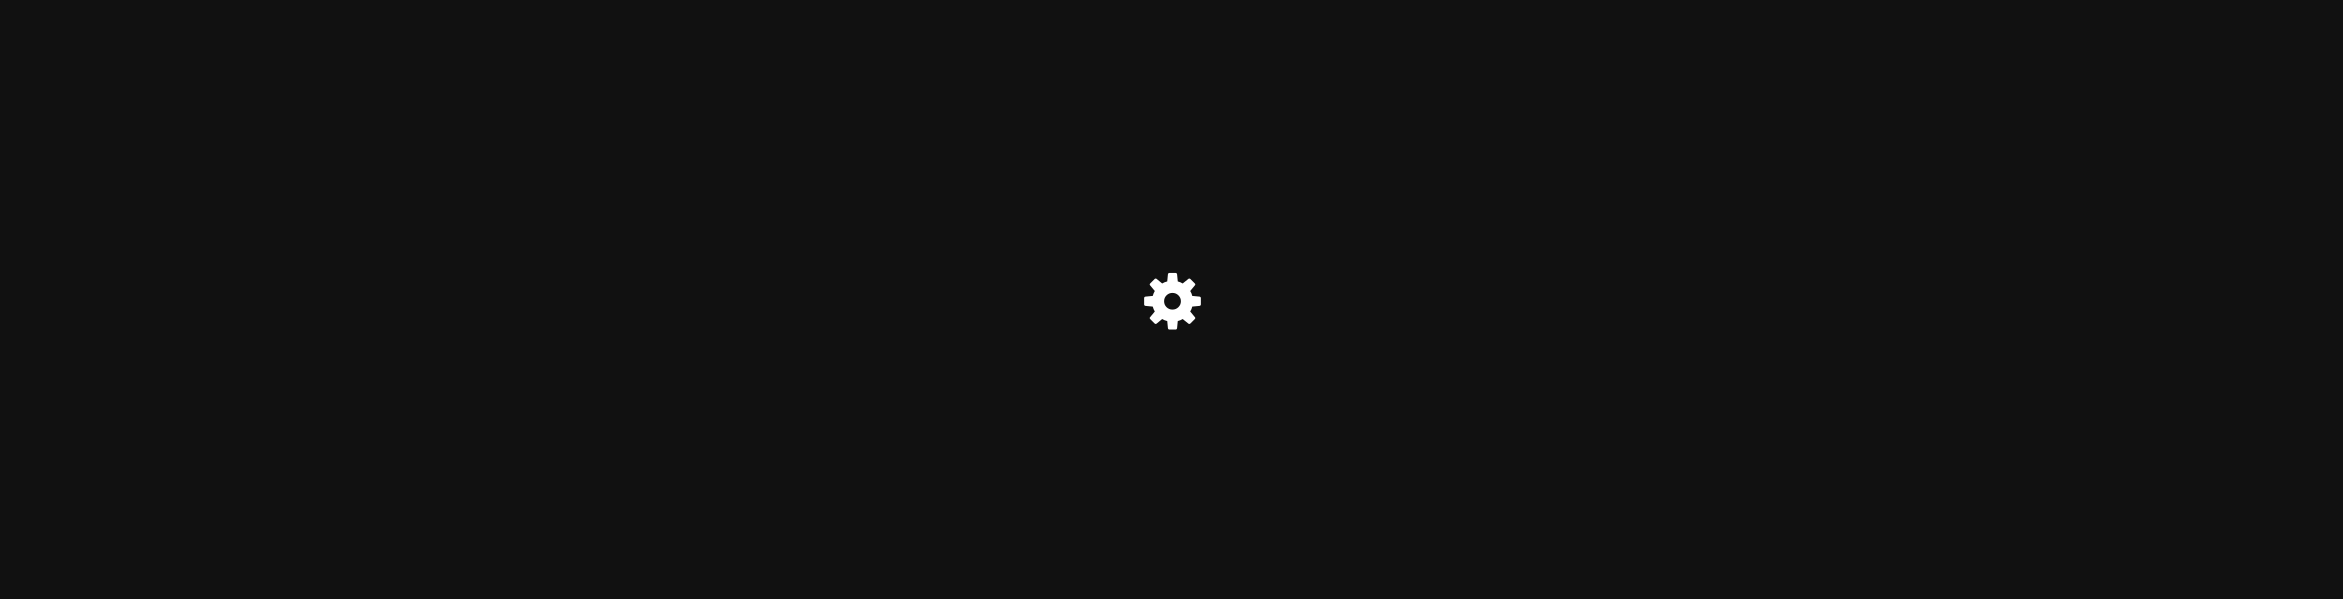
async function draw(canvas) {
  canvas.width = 2343
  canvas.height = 599
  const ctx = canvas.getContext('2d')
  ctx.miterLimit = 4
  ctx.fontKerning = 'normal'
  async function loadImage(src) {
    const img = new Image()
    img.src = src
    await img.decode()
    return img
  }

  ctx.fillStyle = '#111'
  ctx.fillRect(0, 0, 2343, 599)
  ctx.drawImage(await loadImage('image0.png'), 1144, 272, 57, 58)
}

draw(document.querySelector('canvas'))
